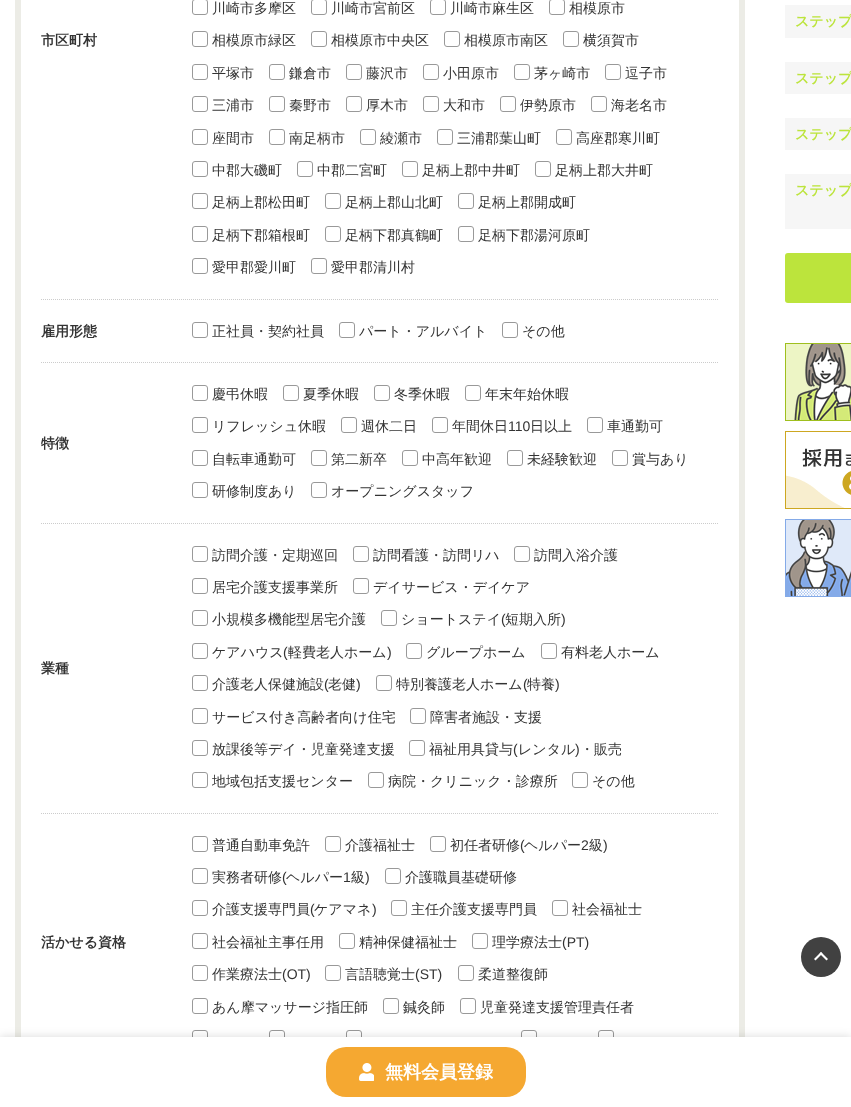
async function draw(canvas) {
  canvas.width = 851
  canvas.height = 1107
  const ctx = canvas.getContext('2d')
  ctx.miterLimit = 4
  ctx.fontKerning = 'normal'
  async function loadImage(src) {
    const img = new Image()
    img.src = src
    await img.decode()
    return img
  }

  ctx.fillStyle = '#fff'
  ctx.fillRect(0, 0, 851, 1107)
  ctx.strokeStyle = '#ecece6'
  ctx.lineWidth = 6
  ctx.strokeRect(18, -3, 724, 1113)
  ctx.font = 'bold 14px WenQuanYi Zen Hei'
  ctx.fillStyle = '#333'
  ctx.fillText('市区町村', 41, 45)
  ctx.beginPath()
  ctx.roundRect(192.5, -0.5, 15, 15, 2.5)
  ctx.strokeStyle = '#999'
  ctx.lineWidth = 1
  ctx.stroke()
  ctx.font = '500 14px WenQuanYi Zen Hei'
  ctx.fillText('川崎市多摩区', 212, 13)
  ctx.beginPath()
  ctx.roundRect(311.5, -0.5, 15, 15, 2.5)
  ctx.stroke()
  ctx.fillText('川崎市宮前区', 331, 13)
  ctx.beginPath()
  ctx.roundRect(430.5, -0.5, 15, 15, 2.5)
  ctx.stroke()
  ctx.fillText('川崎市麻生区', 450, 13)
  ctx.beginPath()
  ctx.roundRect(549.5, -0.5, 15, 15, 2.5)
  ctx.stroke()
  ctx.fillText('相模原市', 569, 13)
  ctx.beginPath()
  ctx.roundRect(192.5, 31.5, 15, 15, 2.5)
  ctx.stroke()
  ctx.fillText('相模原市緑区', 212, 45)
  ctx.beginPath()
  ctx.roundRect(311.5, 31.5, 15, 15, 2.5)
  ctx.stroke()
  ctx.fillText('相模原市中央区', 331, 45)
  ctx.beginPath()
  ctx.roundRect(444.5, 31.5, 15, 15, 2.5)
  ctx.stroke()
  ctx.fillText('相模原市南区', 464, 45)
  ctx.beginPath()
  ctx.roundRect(563.5, 31.5, 15, 15, 2.5)
  ctx.stroke()
  ctx.fillText('横須賀市', 583, 45)
  ctx.beginPath()
  ctx.roundRect(192.5, 64.5, 15, 15, 2.5)
  ctx.stroke()
  ctx.fillText('平塚市', 212, 78)
  ctx.beginPath()
  ctx.roundRect(269.5, 64.5, 15, 15, 2.5)
  ctx.stroke()
  ctx.fillText('鎌倉市', 289, 78)
  ctx.beginPath()
  ctx.roundRect(346.5, 64.5, 15, 15, 2.5)
  ctx.stroke()
  ctx.fillText('藤沢市', 366, 78)
  ctx.beginPath()
  ctx.roundRect(423.5, 64.5, 15, 15, 2.5)
  ctx.stroke()
  ctx.fillText('小田原市', 443, 78)
  ctx.beginPath()
  ctx.roundRect(514.5, 64.5, 15, 15, 2.5)
  ctx.stroke()
  ctx.fillText('茅ヶ崎市', 534, 78)
  ctx.beginPath()
  ctx.roundRect(605.5, 64.5, 15, 15, 2.5)
  ctx.stroke()
  ctx.fillText('逗子市', 625, 78)
  ctx.beginPath()
  ctx.roundRect(192.5, 96.5, 15, 15, 2.5)
  ctx.stroke()
  ctx.fillText('三浦市', 212, 110)
  ctx.beginPath()
  ctx.roundRect(269.5, 96.5, 15, 15, 2.5)
  ctx.stroke()
  ctx.fillText('秦野市', 289, 110)
  ctx.beginPath()
  ctx.roundRect(346.5, 96.5, 15, 15, 2.5)
  ctx.stroke()
  ctx.fillText('厚木市', 366, 110)
  ctx.beginPath()
  ctx.roundRect(423.5, 96.5, 15, 15, 2.5)
  ctx.stroke()
  ctx.fillText('大和市', 443, 110)
  ctx.beginPath()
  ctx.roundRect(500.5, 96.5, 15, 15, 2.5)
  ctx.stroke()
  ctx.fillText('伊勢原市', 520, 110)
  ctx.beginPath()
  ctx.roundRect(591.5, 96.5, 15, 15, 2.5)
  ctx.stroke()
  ctx.fillText('海老名市', 611, 110)
  ctx.beginPath()
  ctx.roundRect(192.5, 129.5, 15, 15, 2.5)
  ctx.stroke()
  ctx.fillText('座間市', 212, 143)
  ctx.beginPath()
  ctx.roundRect(269.5, 129.5, 15, 15, 2.5)
  ctx.stroke()
  ctx.fillText('南足柄市', 289, 143)
  ctx.beginPath()
  ctx.roundRect(360.5, 129.5, 15, 15, 2.5)
  ctx.stroke()
  ctx.fillText('綾瀬市', 380, 143)
  ctx.beginPath()
  ctx.roundRect(437.5, 129.5, 15, 15, 2.5)
  ctx.stroke()
  ctx.fillText('三浦郡葉山町', 457, 143)
  ctx.beginPath()
  ctx.roundRect(556.5, 129.5, 15, 15, 2.5)
  ctx.stroke()
  ctx.fillText('高座郡寒川町', 576, 143)
  ctx.beginPath()
  ctx.roundRect(192.5, 161.5, 15, 15, 2.5)
  ctx.stroke()
  ctx.fillText('中郡大磯町', 212, 175)
  ctx.beginPath()
  ctx.roundRect(297.5, 161.5, 15, 15, 2.5)
  ctx.stroke()
  ctx.fillText('中郡二宮町', 317, 175)
  ctx.beginPath()
  ctx.roundRect(402.5, 161.5, 15, 15, 2.5)
  ctx.stroke()
  ctx.fillText('足柄上郡中井町', 422, 175)
  ctx.beginPath()
  ctx.roundRect(535.5, 161.5, 15, 15, 2.5)
  ctx.stroke()
  ctx.fillText('足柄上郡大井町', 555, 175)
  ctx.beginPath()
  ctx.roundRect(192.5, 193.5, 15, 15, 2.5)
  ctx.stroke()
  ctx.fillText('足柄上郡松田町', 212, 207)
  ctx.beginPath()
  ctx.roundRect(325.5, 193.5, 15, 15, 2.5)
  ctx.stroke()
  ctx.fillText('足柄上郡山北町', 345, 207)
  ctx.beginPath()
  ctx.roundRect(458.5, 193.5, 15, 15, 2.5)
  ctx.stroke()
  ctx.fillText('足柄上郡開成町', 478, 207)
  ctx.beginPath()
  ctx.roundRect(192.5, 226.5, 15, 15, 2.5)
  ctx.stroke()
  ctx.fillText('足柄下郡箱根町', 212, 240)
  ctx.beginPath()
  ctx.roundRect(325.5, 226.5, 15, 15, 2.5)
  ctx.stroke()
  ctx.fillText('足柄下郡真鶴町', 345, 240)
  ctx.beginPath()
  ctx.roundRect(458.5, 226.5, 15, 15, 2.5)
  ctx.stroke()
  ctx.fillText('足柄下郡湯河原町', 478, 240)
  ctx.beginPath()
  ctx.roundRect(192.5, 258.5, 15, 15, 2.5)
  ctx.stroke()
  ctx.fillText('愛甲郡愛川町', 212, 272)
  ctx.beginPath()
  ctx.roundRect(311.5, 258.5, 15, 15, 2.5)
  ctx.stroke()
  ctx.fillText('愛甲郡清川村', 331, 272)
  ctx.beginPath()
  ctx.moveTo(41, 299.5)
  ctx.lineTo(177, 299.5)
  ctx.strokeStyle = '#ccc'
  ctx.setLineDash([1, 1])
  ctx.stroke()
  ctx.font = 'bold 14px WenQuanYi Zen Hei'
  ctx.fillText('雇用形態', 41, 336)
  ctx.beginPath()
  ctx.moveTo(177, 299.5)
  ctx.lineTo(719, 299.5)
  ctx.stroke()
  ctx.beginPath()
  ctx.roundRect(192.5, 322.5, 15, 15, 2.5)
  ctx.strokeStyle = '#999'
  ctx.setLineDash([])
  ctx.stroke()
  ctx.font = '500 14px WenQuanYi Zen Hei'
  ctx.fillText('正社員・契約社員', 212, 336)
  ctx.beginPath()
  ctx.roundRect(339.5, 322.5, 15, 15, 2.5)
  ctx.stroke()
  ctx.fillText('パート・アルバイト', 359, 336)
  ctx.beginPath()
  ctx.roundRect(502.5, 322.5, 15, 15, 2.5)
  ctx.stroke()
  ctx.fillText('その他', 522, 336)
  ctx.beginPath()
  ctx.moveTo(41, 362.5)
  ctx.lineTo(177, 362.5)
  ctx.strokeStyle = '#ccc'
  ctx.setLineDash([1, 1])
  ctx.stroke()
  ctx.font = 'bold 14px WenQuanYi Zen Hei'
  ctx.fillText('特徴', 41, 448)
  ctx.beginPath()
  ctx.moveTo(177, 362.5)
  ctx.lineTo(719, 362.5)
  ctx.stroke()
  ctx.beginPath()
  ctx.roundRect(192.5, 385.5, 15, 15, 2.5)
  ctx.strokeStyle = '#999'
  ctx.setLineDash([])
  ctx.stroke()
  ctx.font = '500 14px WenQuanYi Zen Hei'
  ctx.fillText('慶弔休暇', 212, 399)
  ctx.beginPath()
  ctx.roundRect(283.5, 385.5, 15, 15, 2.5)
  ctx.stroke()
  ctx.fillText('夏季休暇', 303, 399)
  ctx.beginPath()
  ctx.roundRect(374.5, 385.5, 15, 15, 2.5)
  ctx.stroke()
  ctx.fillText('冬季休暇', 394, 399)
  ctx.beginPath()
  ctx.roundRect(465.5, 385.5, 15, 15, 2.5)
  ctx.stroke()
  ctx.fillText('年末年始休暇', 485, 399)
  ctx.beginPath()
  ctx.roundRect(192.5, 417.5, 15, 15, 2.5)
  ctx.stroke()
  ctx.fillText('リフレッシュ休暇', 212, 431)
  ctx.beginPath()
  ctx.roundRect(341.5, 417.5, 15, 15, 2.5)
  ctx.stroke()
  ctx.fillText('週休二日', 361, 431)
  ctx.beginPath()
  ctx.roundRect(432.5, 417.5, 15, 15, 2.5)
  ctx.stroke()
  ctx.fillText('年間休日', 452, 431)
  ctx.font = '14px Liberation Sans'
  ctx.fillText('110', 508, 431)
  ctx.font = '500 14px WenQuanYi Zen Hei'
  ctx.fillText('日以上', 530, 431)
  ctx.beginPath()
  ctx.roundRect(587.5, 417.5, 15, 15, 2.5)
  ctx.stroke()
  ctx.fillText('車通勤可', 607, 431)
  ctx.beginPath()
  ctx.roundRect(192.5, 450.5, 15, 15, 2.5)
  ctx.stroke()
  ctx.fillText('自転車通勤可', 212, 464)
  ctx.beginPath()
  ctx.roundRect(311.5, 450.5, 15, 15, 2.5)
  ctx.stroke()
  ctx.fillText('第二新卒', 331, 464)
  ctx.beginPath()
  ctx.roundRect(402.5, 450.5, 15, 15, 2.5)
  ctx.stroke()
  ctx.fillText('中高年歓迎', 422, 464)
  ctx.beginPath()
  ctx.roundRect(507.5, 450.5, 15, 15, 2.5)
  ctx.stroke()
  ctx.fillText('未経験歓迎', 527, 464)
  ctx.beginPath()
  ctx.roundRect(612.5, 450.5, 15, 15, 2.5)
  ctx.stroke()
  ctx.fillText('賞与あり', 632, 464)
  ctx.beginPath()
  ctx.roundRect(192.5, 482.5, 15, 15, 2.5)
  ctx.stroke()
  ctx.fillText('研修制度あり', 212, 496)
  ctx.beginPath()
  ctx.roundRect(311.5, 482.5, 15, 15, 2.5)
  ctx.stroke()
  ctx.fillText('オープニングスタッフ', 331, 496)
  ctx.beginPath()
  ctx.moveTo(41, 523.5)
  ctx.lineTo(177, 523.5)
  ctx.strokeStyle = '#ccc'
  ctx.setLineDash([1, 1])
  ctx.stroke()
  ctx.font = 'bold 14px WenQuanYi Zen Hei'
  ctx.fillText('業種', 41, 673)
  ctx.beginPath()
  ctx.moveTo(177, 523.5)
  ctx.lineTo(719, 523.5)
  ctx.stroke()
  ctx.beginPath()
  ctx.roundRect(192.5, 546.5, 15, 15, 2.5)
  ctx.strokeStyle = '#999'
  ctx.setLineDash([])
  ctx.stroke()
  ctx.font = '500 14px WenQuanYi Zen Hei'
  ctx.fillText('訪問介護・定期巡回', 212, 560)
  ctx.beginPath()
  ctx.roundRect(353.5, 546.5, 15, 15, 2.5)
  ctx.stroke()
  ctx.fillText('訪問看護・訪問リハ', 373, 560)
  ctx.beginPath()
  ctx.roundRect(514.5, 546.5, 15, 15, 2.5)
  ctx.stroke()
  ctx.fillText('訪問入浴介護', 534, 560)
  ctx.beginPath()
  ctx.roundRect(192.5, 578.5, 15, 15, 2.5)
  ctx.stroke()
  ctx.fillText('居宅介護支援事業所', 212, 592)
  ctx.beginPath()
  ctx.roundRect(353.5, 578.5, 15, 15, 2.5)
  ctx.stroke()
  ctx.fillText('デイサービス・デイケア', 373, 592)
  ctx.beginPath()
  ctx.roundRect(192.5, 610.5, 15, 15, 2.5)
  ctx.stroke()
  ctx.fillText('小規模多機能型居宅介護', 212, 624)
  ctx.beginPath()
  ctx.roundRect(381.5, 610.5, 15, 15, 2.5)
  ctx.stroke()
  ctx.fillText('ショートステイ', 401, 624)
  ctx.font = '14px Liberation Sans'
  ctx.fillText('(', 501, 624)
  ctx.font = '500 14px WenQuanYi Zen Hei'
  ctx.fillText('短期入所', 505, 624)
  ctx.font = '14px Liberation Sans'
  ctx.fillText(')', 561, 624)
  ctx.beginPath()
  ctx.roundRect(192.5, 643.5, 15, 15, 2.5)
  ctx.stroke()
  ctx.font = '500 14px WenQuanYi Zen Hei'
  ctx.fillText('ケアハウス', 212, 657)
  ctx.font = '14px Liberation Sans'
  ctx.fillText('(', 283, 657)
  ctx.font = '500 14px WenQuanYi Zen Hei'
  ctx.fillText('軽費老人ホーム', 288, 657)
  ctx.font = '14px Liberation Sans'
  ctx.fillText(')', 387, 657)
  ctx.beginPath()
  ctx.roundRect(406.5, 643.5, 15, 15, 2.5)
  ctx.stroke()
  ctx.font = '500 14px WenQuanYi Zen Hei'
  ctx.fillText('グループホーム', 426, 657)
  ctx.beginPath()
  ctx.roundRect(541.5, 643.5, 15, 15, 2.5)
  ctx.stroke()
  ctx.fillText('有料老人ホーム', 561, 657)
  ctx.beginPath()
  ctx.roundRect(192.5, 675.5, 15, 15, 2.5)
  ctx.stroke()
  ctx.fillText('介護老人保健施設', 212, 689)
  ctx.font = '14px Liberation Sans'
  ctx.fillText('(', 324, 689)
  ctx.font = '500 14px WenQuanYi Zen Hei'
  ctx.fillText('老健', 328, 689)
  ctx.font = '14px Liberation Sans'
  ctx.fillText(')', 356, 689)
  ctx.beginPath()
  ctx.roundRect(376.5, 675.5, 15, 15, 2.5)
  ctx.stroke()
  ctx.font = '500 14px WenQuanYi Zen Hei'
  ctx.fillText('特別養護老人ホーム', 396, 689)
  ctx.font = '14px Liberation Sans'
  ctx.fillText('(', 523, 689)
  ctx.font = '500 14px WenQuanYi Zen Hei'
  ctx.fillText('特養', 527, 689)
  ctx.font = '14px Liberation Sans'
  ctx.fillText(')', 555, 689)
  ctx.beginPath()
  ctx.roundRect(192.5, 708.5, 15, 15, 2.5)
  ctx.stroke()
  ctx.font = '500 14px WenQuanYi Zen Hei'
  ctx.fillText('サービス付き高齢者向け住宅', 212, 722)
  ctx.beginPath()
  ctx.roundRect(410.5, 708.5, 15, 15, 2.5)
  ctx.stroke()
  ctx.fillText('障害者施設・支援', 430, 722)
  ctx.beginPath()
  ctx.roundRect(192.5, 740.5, 15, 15, 2.5)
  ctx.stroke()
  ctx.fillText('放課後等デイ・児童発達支援', 212, 754)
  ctx.beginPath()
  ctx.roundRect(409.5, 740.5, 15, 15, 2.5)
  ctx.stroke()
  ctx.fillText('福祉用具貸与', 429, 754)
  ctx.font = '14px Liberation Sans'
  ctx.fillText('(', 513, 754)
  ctx.font = '500 14px WenQuanYi Zen Hei'
  ctx.fillText('レンタル', 518, 754)
  ctx.font = '14px Liberation Sans'
  ctx.fillText(')', 575, 754)
  ctx.font = '500 14px WenQuanYi Zen Hei'
  ctx.fillText('・販売', 580, 754)
  ctx.beginPath()
  ctx.roundRect(192.5, 772.5, 15, 15, 2.5)
  ctx.stroke()
  ctx.fillText('地域包括支援センター', 212, 786)
  ctx.beginPath()
  ctx.roundRect(368.5, 772.5, 15, 15, 2.5)
  ctx.stroke()
  ctx.fillText('病院・クリニック・診療所', 388, 786)
  ctx.beginPath()
  ctx.roundRect(572.5, 772.5, 15, 15, 2.5)
  ctx.stroke()
  ctx.fillText('その他', 592, 786)
  ctx.beginPath()
  ctx.moveTo(41, 813.5)
  ctx.lineTo(177, 813.5)
  ctx.strokeStyle = '#ccc'
  ctx.setLineDash([1, 1])
  ctx.stroke()
  ctx.font = 'bold 14px WenQuanYi Zen Hei'
  ctx.fillText('活かせる資格', 41, 947)
  ctx.beginPath()
  ctx.moveTo(177, 813.5)
  ctx.lineTo(719, 813.5)
  ctx.stroke()
  ctx.beginPath()
  ctx.roundRect(192.5, 836.5, 15, 15, 2.5)
  ctx.strokeStyle = '#999'
  ctx.setLineDash([])
  ctx.stroke()
  ctx.font = '500 14px WenQuanYi Zen Hei'
  ctx.fillText('普通自動車免許', 212, 850)
  ctx.beginPath()
  ctx.roundRect(325.5, 836.5, 15, 15, 2.5)
  ctx.stroke()
  ctx.fillText('介護福祉士', 345, 850)
  ctx.beginPath()
  ctx.roundRect(430.5, 836.5, 15, 15, 2.5)
  ctx.stroke()
  ctx.fillText('初任者研修', 450, 850)
  ctx.font = '14px Liberation Sans'
  ctx.fillText('(', 520, 850)
  ctx.font = '500 14px WenQuanYi Zen Hei'
  ctx.fillText('ヘルパー', 524, 850)
  ctx.font = '14px Liberation Sans'
  ctx.fillText('2', 581, 850)
  ctx.font = '500 14px WenQuanYi Zen Hei'
  ctx.fillText('級', 589, 850)
  ctx.font = '14px Liberation Sans'
  ctx.fillText(')', 603, 850)
  ctx.beginPath()
  ctx.roundRect(192.5, 868.5, 15, 15, 2.5)
  ctx.stroke()
  ctx.font = '500 14px WenQuanYi Zen Hei'
  ctx.fillText('実務者研修', 212, 882)
  ctx.font = '14px Liberation Sans'
  ctx.fillText('(', 282, 882)
  ctx.font = '500 14px WenQuanYi Zen Hei'
  ctx.fillText('ヘルパー', 286, 882)
  ctx.font = '14px Liberation Sans'
  ctx.fillText('1', 343, 882)
  ctx.font = '500 14px WenQuanYi Zen Hei'
  ctx.fillText('級', 351, 882)
  ctx.font = '14px Liberation Sans'
  ctx.fillText(')', 365, 882)
  ctx.beginPath()
  ctx.roundRect(385.5, 868.5, 15, 15, 2.5)
  ctx.stroke()
  ctx.font = '500 14px WenQuanYi Zen Hei'
  ctx.fillText('介護職員基礎研修', 405, 882)
  ctx.beginPath()
  ctx.roundRect(192.5, 900.5, 15, 15, 2.5)
  ctx.stroke()
  ctx.fillText('介護支援専門員', 212, 914)
  ctx.font = '14px Liberation Sans'
  ctx.fillText('(', 310, 914)
  ctx.font = '500 14px WenQuanYi Zen Hei'
  ctx.fillText('ケアマネ', 314, 914)
  ctx.font = '14px Liberation Sans'
  ctx.fillText(')', 372, 914)
  ctx.beginPath()
  ctx.roundRect(391.5, 900.5, 15, 15, 2.5)
  ctx.stroke()
  ctx.font = '500 14px WenQuanYi Zen Hei'
  ctx.fillText('主任介護支援専門員', 411, 914)
  ctx.beginPath()
  ctx.roundRect(552.5, 900.5, 15, 15, 2.5)
  ctx.stroke()
  ctx.fillText('社会福祉士', 572, 914)
  ctx.beginPath()
  ctx.roundRect(192.5, 933.5, 15, 15, 2.5)
  ctx.stroke()
  ctx.fillText('社会福祉主事任用', 212, 947)
  ctx.beginPath()
  ctx.roundRect(339.5, 933.5, 15, 15, 2.5)
  ctx.stroke()
  ctx.fillText('精神保健福祉士', 359, 947)
  ctx.beginPath()
  ctx.roundRect(472.5, 933.5, 15, 15, 2.5)
  ctx.stroke()
  ctx.fillText('理学療法士', 492, 947)
  ctx.font = '14px Liberation Sans'
  ctx.fillText('(PT)', 562, 947)
  ctx.beginPath()
  ctx.roundRect(192.5, 965.5, 15, 15, 2.5)
  ctx.stroke()
  ctx.font = '500 14px WenQuanYi Zen Hei'
  ctx.fillText('作業療法士', 212, 979)
  ctx.font = '14px Liberation Sans'
  ctx.fillText('(OT)', 282, 979)
  ctx.beginPath()
  ctx.roundRect(325.5, 965.5, 15, 15, 2.5)
  ctx.stroke()
  ctx.font = '500 14px WenQuanYi Zen Hei'
  ctx.fillText('言語聴覚士', 345, 979)
  ctx.font = '14px Liberation Sans'
  ctx.fillText('(ST)', 415, 979)
  ctx.beginPath()
  ctx.roundRect(458.5, 965.5, 15, 15, 2.5)
  ctx.stroke()
  ctx.font = '500 14px WenQuanYi Zen Hei'
  ctx.fillText('柔道整復師', 478, 979)
  ctx.beginPath()
  ctx.roundRect(192.5, 998.5, 15, 15, 2.5)
  ctx.stroke()
  ctx.fillText('あん摩マッサージ指圧師', 212, 1012)
  ctx.beginPath()
  ctx.roundRect(383.5, 998.5, 15, 15, 2.5)
  ctx.stroke()
  ctx.fillText('鍼灸師', 403, 1012)
  ctx.beginPath()
  ctx.roundRect(460.5, 998.5, 15, 15, 2.5)
  ctx.stroke()
  ctx.fillText('児童発達支援管理責任者', 480, 1012)
  ctx.beginPath()
  ctx.roundRect(192.5, 1030.5, 15, 15, 2.5)
  ctx.stroke()
  ctx.beginPath()
  ctx.roundRect(269.5, 1030.5, 15, 15, 2.5)
  ctx.stroke()
  ctx.beginPath()
  ctx.roundRect(346.5, 1030.5, 15, 15, 2.5)
  ctx.stroke()
  ctx.beginPath()
  ctx.roundRect(521.5, 1030.5, 15, 15, 2.5)
  ctx.stroke()
  ctx.beginPath()
  ctx.roundRect(598.5, 1030.5, 15, 15, 2.5)
  ctx.stroke()
  ctx.fillStyle = '#f6f6f6'
  ctx.fillRect(785, 5, 66, 33)
  ctx.font = 'bold 14px WenQuanYi Zen Hei'
  ctx.fillStyle = '#bce43c'
  ctx.fillText('ステップ', 795, 26)
  ctx.fillStyle = '#f6f6f6'
  ctx.fillRect(785, 62, 66, 32)
  ctx.fillStyle = '#bce43c'
  ctx.fillText('ステップ', 795, 83)
  ctx.fillStyle = '#f6f6f6'
  ctx.fillRect(785, 118, 66, 32)
  ctx.fillStyle = '#bce43c'
  ctx.fillText('ステップ', 795, 139)
  ctx.fillStyle = '#f6f6f6'
  ctx.fillRect(785, 174, 66, 55)
  ctx.fillStyle = '#bce43c'
  ctx.fillText('ステップ', 795, 195)
  ctx.beginPath()
  ctx.roundRect(785, 253, 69, 50, 3)
  ctx.fill()
  ctx.drawImage(await loadImage('image0.png'), 785, 343, 66, 78)
  ctx.drawImage(await loadImage('image1.png'), 785, 431, 66, 78)
  ctx.drawImage(await loadImage('image2.png'), 785, 519, 66, 78)
  ctx.fillStyle = '#414141'
  ctx.beginPath()
  ctx.arc(821, 957, 20, 0, 2 * Math.PI)
  ctx.fill()
  ctx.fillStyle = '#fff'
  ctx.beginPath()
  ctx.moveTo(814, 959)
  ctx.lineTo(821, 952)
  ctx.lineTo(822.5, 953.5)
  ctx.lineTo(815.5, 960.5)
  ctx.closePath()
  ctx.fill()
  ctx.beginPath()
  ctx.moveTo(819.5, 953.5)
  ctx.lineTo(821, 952)
  ctx.lineTo(828, 959)
  ctx.lineTo(826.5, 960.5)
  ctx.closePath()
  ctx.fill()
  ctx.fillStyle = '#00000026'
  ctx.filter = 'blur(5px)'
  ctx.beginPath()
  ctx.rect(0, 1037, 851, 70)
  ctx.fill()
  ctx.filter = 'none'
  ctx.fillStyle = '#fff'
  ctx.fillRect(0, 1037, 851, 70)
  ctx.fillStyle = '#f5a831'
  ctx.beginPath()
  ctx.roundRect(326, 1047, 200, 50, 20)
  ctx.fill()
  ctx.drawImage(await loadImage('image3.png'), 359, 1063, 15, 18)
  ctx.font = 'bold 18px WenQuanYi Zen Hei'
  ctx.fillStyle = '#fff'
  ctx.fillText('無料会員登録', 385, 1078)
}

draw(document.querySelector('canvas'))
